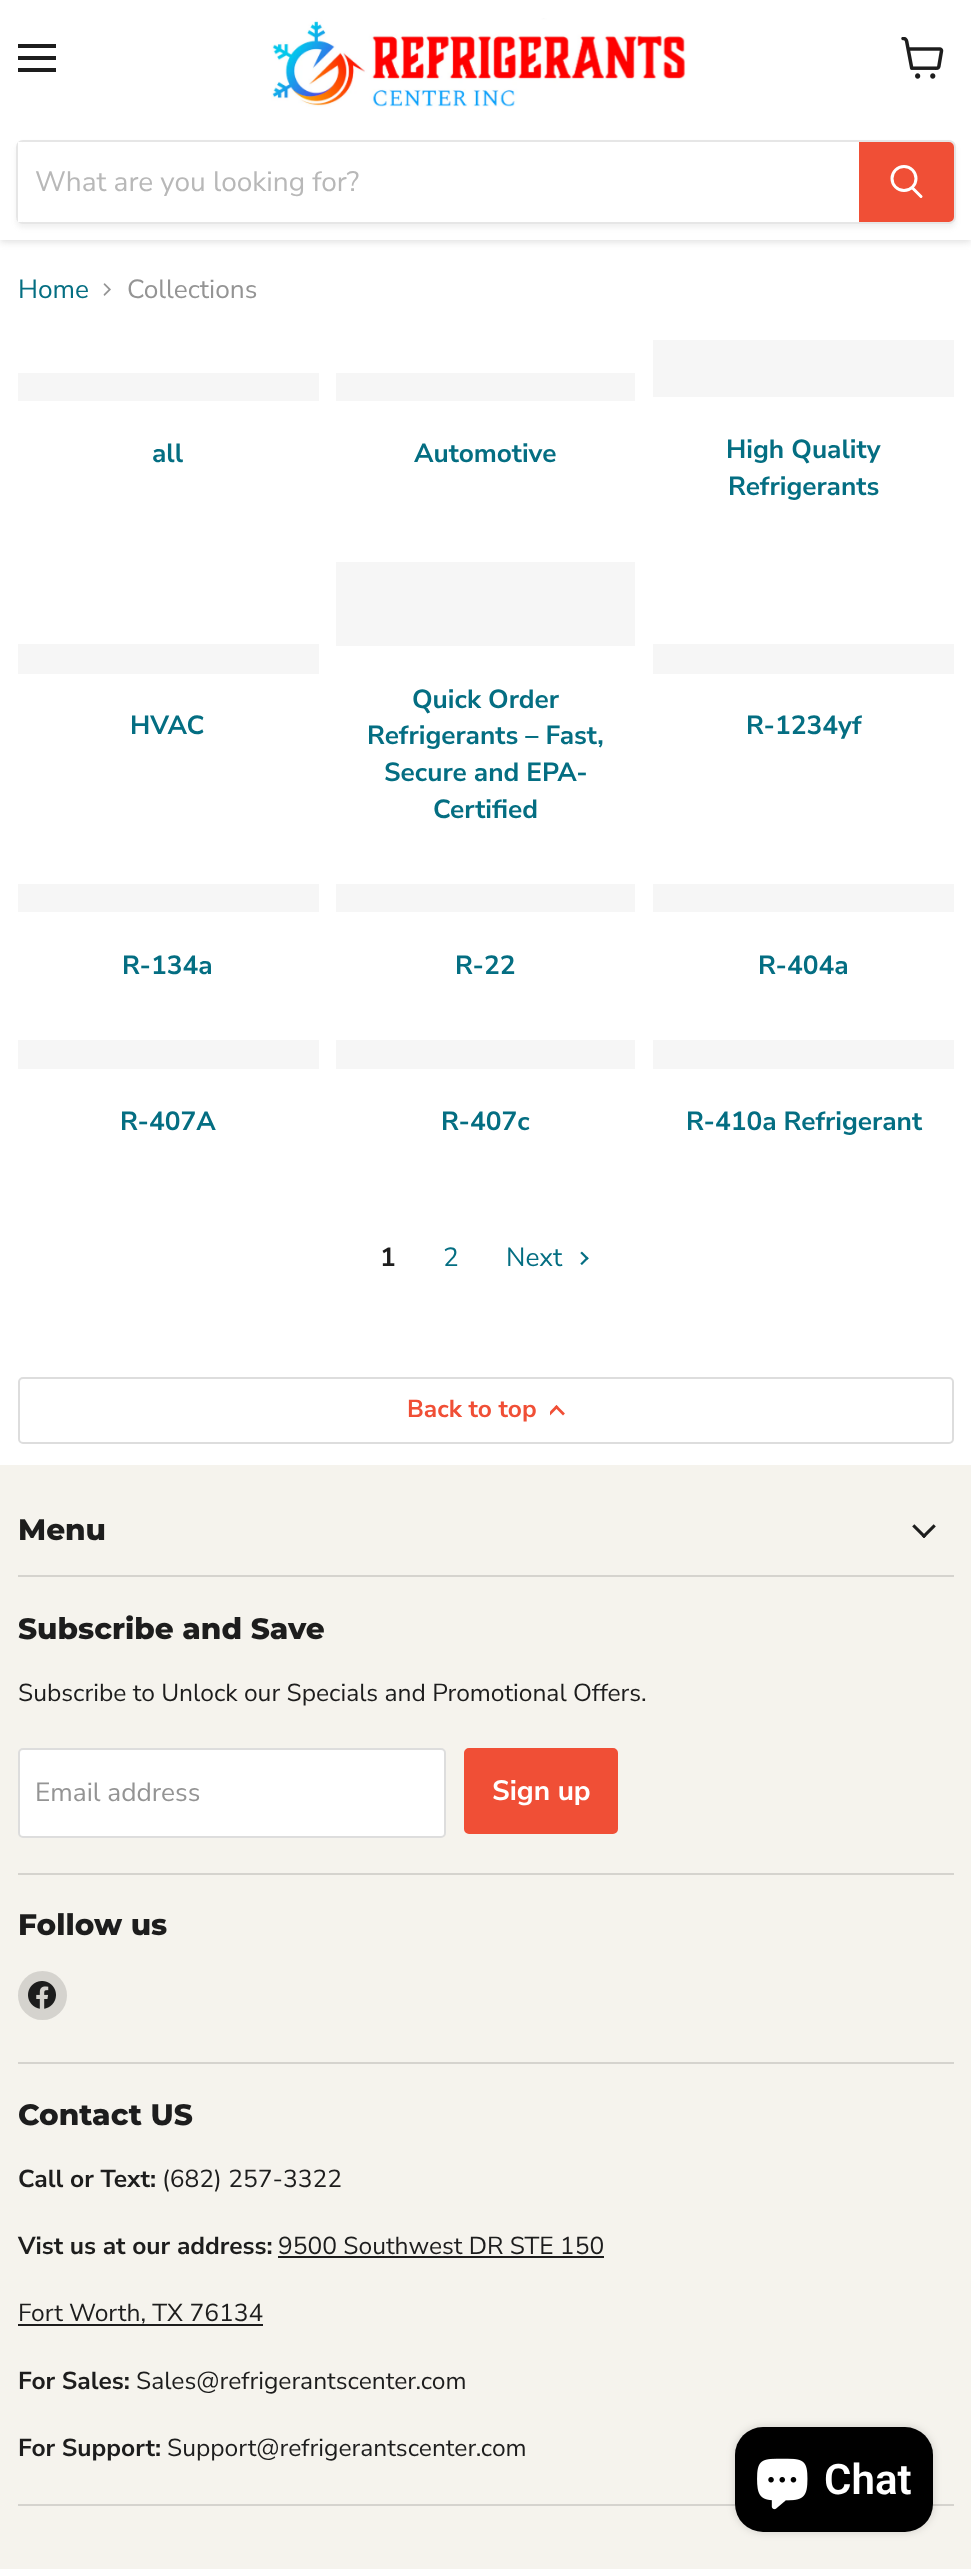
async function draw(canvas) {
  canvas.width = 971
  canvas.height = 2569
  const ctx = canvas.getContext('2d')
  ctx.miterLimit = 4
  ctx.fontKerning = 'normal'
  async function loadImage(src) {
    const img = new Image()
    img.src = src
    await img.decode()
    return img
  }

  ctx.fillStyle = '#fff'
  ctx.fillRect(0, 0, 971, 2569)
  ctx.fillStyle = '#80808040'
  ctx.filter = 'blur(3.5px)'
  ctx.beginPath()
  ctx.rect(0, 2, 971, 240)
  ctx.fill()
  ctx.filter = 'none'
  ctx.fillStyle = '#fff'
  ctx.fillRect(0, 0, 971, 240)
  ctx.fillStyle = '#1d1d1d'
  ctx.fillRect(18, 44, 38, 4)
  ctx.fillRect(18, 56, 38, 4)
  ctx.fillRect(18, 68, 38, 4)
  ctx.drawImage(await loadImage('image0.png'), 901, 37, 43, 42)
  ctx.drawImage(await loadImage('image1.png'), 271, 18, 415, 89)
  ctx.save()
  ctx.beginPath()
  ctx.moveTo(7, 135)
  ctx.lineTo(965, 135)
  ctx.lineTo(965, 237)
  ctx.lineTo(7, 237)
  ctx.closePath()
  ctx.moveTo(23, 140)
  ctx.lineTo(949, 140)
  ctx.bezierCurveTo(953, 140, 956, 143, 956, 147)
  ctx.lineTo(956, 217)
  ctx.bezierCurveTo(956, 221, 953, 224, 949, 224)
  ctx.lineTo(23, 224)
  ctx.bezierCurveTo(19, 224, 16, 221, 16, 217)
  ctx.lineTo(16, 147)
  ctx.bezierCurveTo(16, 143, 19, 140, 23, 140)
  ctx.closePath()
  ctx.clip('evenodd')
  ctx.fillStyle = '#8080801c'
  ctx.filter = 'blur(2.5px)'
  ctx.beginPath()
  ctx.roundRect(16, 144, 940, 84, 7)
  ctx.fill()
  ctx.filter = 'none'
  ctx.restore()
  ctx.beginPath()
  ctx.roundRect(17, 141, 938, 82, 6)
  ctx.strokeStyle = '#80808033'
  ctx.lineWidth = 2
  ctx.stroke()
  ctx.fillStyle = '#fff'
  ctx.fillRect(18, 142, 4, 80)
  ctx.font = '28px Nunito Sans'
  ctx.fillStyle = '#b8b8b8'
  ctx.fillText('What are you looking for?', 35, 191)
  ctx.fillStyle = '#f04f36'
  ctx.beginPath()
  ctx.roundRect(860, 143, 93, 78, [0, 4, 4, 0])
  ctx.fill()
  ctx.strokeStyle = '#f04f36'
  ctx.stroke()
  ctx.beginPath()
  ctx.moveTo(921, 196.5)
  ctx.lineTo(912.5, 188)
  ctx.strokeStyle = '#fff'
  ctx.lineWidth = 3
  ctx.lineCap = 'round'
  ctx.stroke()
  ctx.beginPath()
  ctx.arc(904, 178.5, 12, 0, 2 * Math.PI)
  ctx.stroke()
  ctx.font = '26.25px Nunito Sans'
  ctx.fillStyle = '#046e82'
  ctx.fillText('Home', 18, 298)
  ctx.drawImage(await loadImage('image2.png'), 103, 283, 8, 13)
  ctx.fillStyle = '#949494'
  ctx.fillText('Collections', 127, 298)
  ctx.fillStyle = '#f6f6f6'
  ctx.fillRect(18, 373, 301, 28)
  ctx.font = 'bold 26.25px Nunito Sans'
  ctx.fillStyle = '#046e82'
  ctx.fillText('all', 152, 462)
  ctx.fillStyle = '#f6f6f6'
  ctx.fillRect(336, 373, 299, 28)
  ctx.fillStyle = '#046e82'
  ctx.fillText('Automotive', 414, 462)
  ctx.fillStyle = '#f6f6f6'
  ctx.fillRect(653, 340, 301, 57)
  ctx.fillStyle = '#046e82'
  ctx.fillText('High Quality', 726, 458)
  ctx.fillText('Refrigerants', 728, 495)
  ctx.fillStyle = '#f6f6f6'
  ctx.fillRect(18, 644, 301, 30)
  ctx.fillStyle = '#046e82'
  ctx.fillText('HVAC', 130, 734)
  ctx.fillStyle = '#f6f6f6'
  ctx.fillRect(336, 562, 299, 84)
  ctx.fillStyle = '#046e82'
  ctx.fillText('Quick Order', 412, 708)
  ctx.fillText('Refrigerants – Fast,', 367, 744)
  ctx.fillText('Secure and EPA-', 384, 781)
  ctx.fillText('Certified', 433, 818)
  ctx.fillStyle = '#f6f6f6'
  ctx.fillRect(653, 644, 301, 30)
  ctx.fillStyle = '#046e82'
  ctx.fillText('R-1234yf', 746, 734)
  ctx.fillStyle = '#f6f6f6'
  ctx.fillRect(18, 884, 301, 28)
  ctx.fillStyle = '#046e82'
  ctx.fillText('R-134a', 122, 974)
  ctx.fillStyle = '#f6f6f6'
  ctx.fillRect(336, 884, 299, 28)
  ctx.fillStyle = '#046e82'
  ctx.fillText('R-22', 455, 974)
  ctx.fillStyle = '#f6f6f6'
  ctx.fillRect(653, 884, 301, 28)
  ctx.fillStyle = '#046e82'
  ctx.fillText('R-404a', 758, 974)
  ctx.fillStyle = '#f6f6f6'
  ctx.fillRect(18, 1040, 301, 29)
  ctx.fillStyle = '#046e82'
  ctx.fillText('R-407A', 120, 1130)
  ctx.fillStyle = '#f6f6f6'
  ctx.fillRect(336, 1040, 299, 29)
  ctx.fillStyle = '#046e82'
  ctx.fillText('R-407c', 441, 1130)
  ctx.fillStyle = '#f6f6f6'
  ctx.fillRect(653, 1040, 301, 29)
  ctx.fillStyle = '#046e82'
  ctx.fillText('R-410a Refrigerant', 686, 1130)
  ctx.fillStyle = '#1d1d1d'
  ctx.fillText('1', 380, 1266)
  ctx.font = '26.25px Nunito Sans'
  ctx.fillStyle = '#046e82'
  ctx.fillText('2', 443, 1266)
  ctx.fillText('Next', 506, 1266)
  ctx.drawImage(await loadImage('image3.png'), 580, 1251, 9, 14)
  ctx.beginPath()
  ctx.roundRect(19, 1378, 934, 65, 4)
  ctx.strokeStyle = '#ddd'
  ctx.lineWidth = 2
  ctx.stroke()
  ctx.font = 'bold 24.5px Nunito Sans'
  ctx.fillStyle = '#f04f36'
  ctx.fillText('Back to top', 407, 1417)
  ctx.save()
  ctx.beginPath()
  ctx.rect(550, 1404, 17, 14)
  ctx.clip()
  ctx.beginPath()
  ctx.moveTo(556.5, 1407)
  ctx.lineTo(550, 1413.5)
  ctx.strokeStyle = '#f04f36'
  ctx.lineWidth = 2.7
  ctx.lineCap = 'square'
  ctx.stroke()
  ctx.restore()
  ctx.beginPath()
  ctx.moveTo(556.5, 1407)
  ctx.lineTo(563, 1413.5)
  ctx.strokeStyle = '#f04f36'
  ctx.lineWidth = 2.7
  ctx.lineCap = 'square'
  ctx.stroke()
  ctx.fillStyle = '#f5f3ed'
  ctx.fillRect(0, 1465, 971, 1104)
  ctx.fillStyle = '#d5d3ce'
  ctx.fillRect(18, 1575, 936, 2)
  ctx.font = '800 29.5px Montserrat'
  ctx.fillStyle = '#1d1d1d'
  ctx.fillText('Menu', 18, 1540)
  ctx.drawImage(await loadImage('image4.png'), 912, 1524, 24, 14)
  ctx.fillStyle = '#d5d3ce'
  ctx.fillRect(18, 1873, 936, 2)
  ctx.fillStyle = '#1d1d1d'
  ctx.fillText('Subscribe and Save', 18, 1639)
  ctx.font = '24.6px Nunito Sans'
  ctx.fillText('Subscribe to Unlock our Specials and Promotional Offers.', 18, 1701)
  ctx.fillStyle = '#fff'
  ctx.beginPath()
  ctx.roundRect(19, 1749, 426, 88, 4)
  ctx.fill()
  ctx.strokeStyle = '#ddd'
  ctx.lineWidth = 2
  ctx.stroke()
  ctx.font = '26.25px Nunito Sans'
  ctx.fillStyle = '#949494'
  ctx.fillText('Email address', 35, 1801)
  ctx.fillStyle = '#f04f36'
  ctx.beginPath()
  ctx.roundRect(465, 1749, 152, 84, 4)
  ctx.fill()
  ctx.strokeStyle = '#f04f36'
  ctx.stroke()
  ctx.font = 'bold 28px Nunito Sans'
  ctx.fillStyle = '#fff'
  ctx.fillText('Sign up', 492, 1800)
  ctx.fillStyle = '#d5d3ce'
  ctx.fillRect(18, 2062, 936, 2)
  ctx.font = '800 29.5px Montserrat'
  ctx.fillStyle = '#1d1d1d'
  ctx.fillText('Follow us', 18, 1935)
  ctx.fillStyle = '#d5d3ce'
  ctx.beginPath()
  ctx.arc(42.5, 1995.5, 24.5, 0, 2 * Math.PI)
  ctx.fill()
  ctx.drawImage(await loadImage('image5.png'), 28, 1981, 28, 28)
  ctx.fillRect(18, 2504, 936, 2)
  ctx.fillStyle = '#1d1d1d'
  ctx.fillText('Contact US', 18, 2125)
  ctx.font = 'bold 24.6px Nunito Sans'
  ctx.fillText('Call or Text:', 18, 2187)
  ctx.font = '24.6px Nunito Sans'
  ctx.fillText('(682) 257-3322', 162, 2187)
  ctx.font = 'bold 24.6px Nunito Sans'
  ctx.fillText('Vist us at our address:', 18, 2254)
  ctx.font = '24.6px Nunito Sans'
  ctx.fillText('9500 Southwest DR STE 150', 278, 2254)
  ctx.fillRect(278, 2256, 326, 2)
  ctx.fillText('Fort Worth, TX 76134', 18, 2321)
  ctx.fillRect(18, 2324, 245, 2)
  ctx.font = 'bold 24.6px Nunito Sans'
  ctx.fillText('For Sales:', 18, 2389)
  ctx.font = '24.6px Nunito Sans'
  ctx.fillText('Sales@refrigerantscenter.com', 136, 2389)
  ctx.font = 'bold 24.6px Nunito Sans'
  ctx.fillText('For Support:', 18, 2456)
  ctx.font = '24.6px Nunito Sans'
  ctx.fillText('Support@refrigerantscenter.com', 167, 2456)
  ctx.fillStyle = '#00000026'
  ctx.filter = 'blur(4.5px)'
  ctx.beginPath()
  ctx.roundRect(735, 2427, 198, 105, 28)
  ctx.fill()
  ctx.filter = 'none'
  ctx.fillStyle = '#000'
  ctx.beginPath()
  ctx.roundRect(735, 2427, 198, 105, 28)
  ctx.fill()
  ctx.drawImage(await loadImage('image6.png'), 757, 2458, 51, 52)
  ctx.font = '600 42px Roboto'
  ctx.fillStyle = '#fff'
  ctx.fillText('Chat', 824, 2494)
}

draw(document.querySelector('canvas'))
